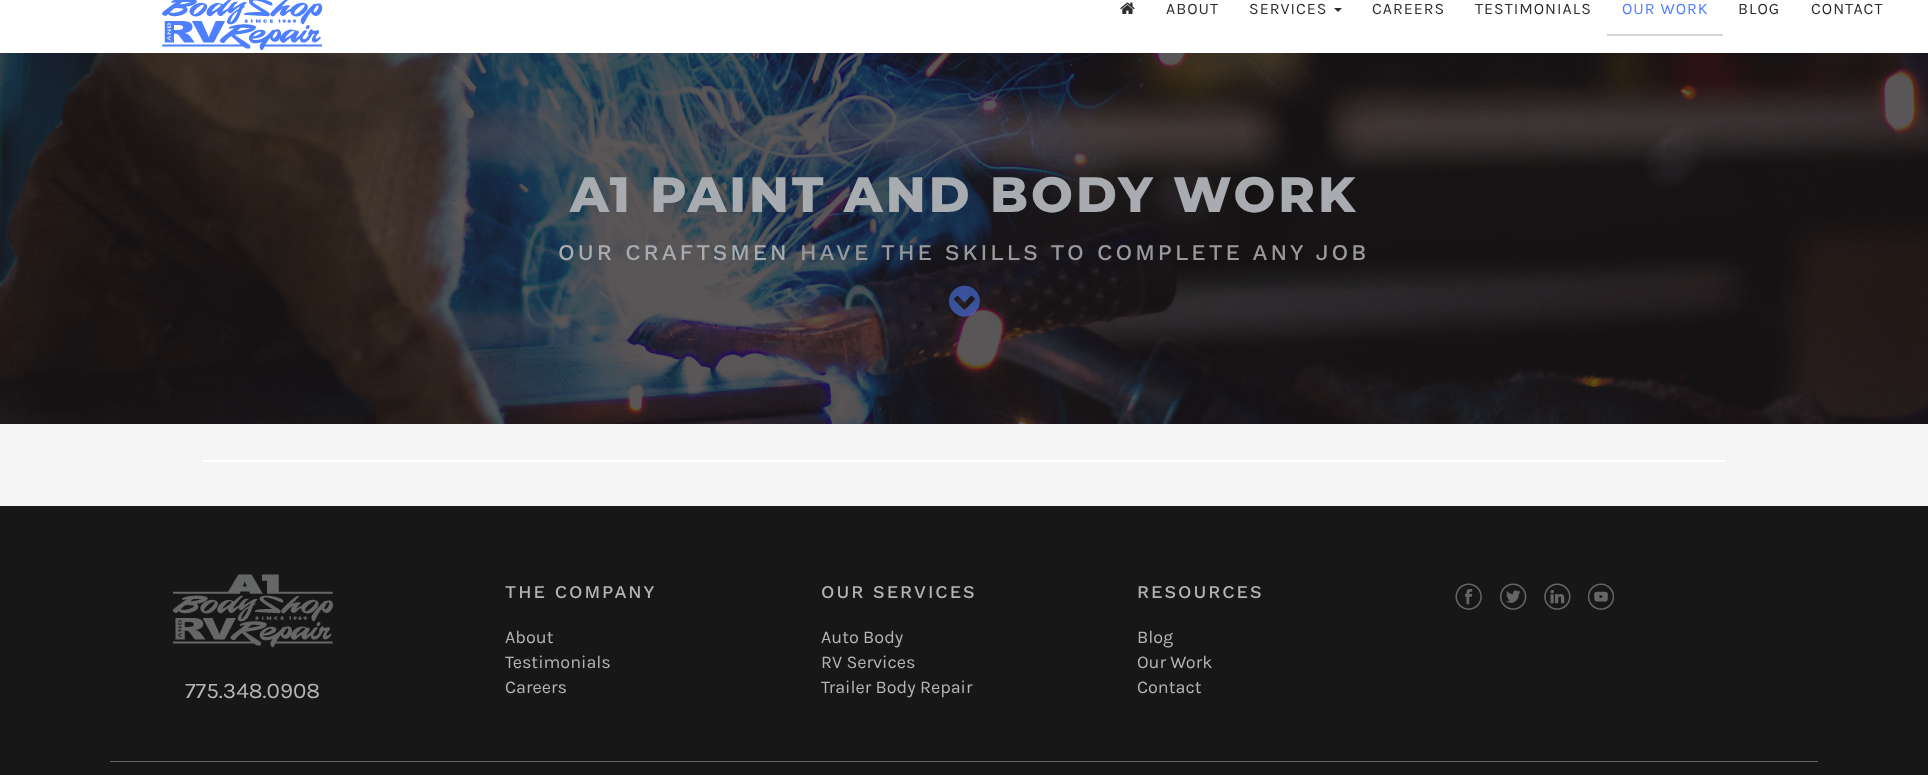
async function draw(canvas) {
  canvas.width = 1928
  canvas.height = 775
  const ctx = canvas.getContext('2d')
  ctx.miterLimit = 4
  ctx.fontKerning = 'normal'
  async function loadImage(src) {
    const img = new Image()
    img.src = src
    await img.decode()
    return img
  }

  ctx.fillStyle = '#fff'
  ctx.fillRect(0, 0, 1928, 775)
  ctx.drawImage(await loadImage('image0.png'), 162, 0, 161, 51)
  ctx.drawImage(await loadImage('image1.png'), 1120, 2, 15, 12)
  ctx.letterSpacing = '1px'
  ctx.font = '16px Karla'
  ctx.fillStyle = '#2d2d2d'
  ctx.fillText('ABOUT', 1166, 14)
  ctx.fillText('SERVICES', 1249, 14)
  ctx.beginPath()
  ctx.moveTo(1334, 8)
  ctx.lineTo(1342, 8)
  ctx.lineTo(1338, 12)
  ctx.closePath()
  ctx.fill()
  ctx.fillText('CAREERS', 1372, 14)
  ctx.fillText('TESTIMONIALS', 1475, 14)
  ctx.fillStyle = '#d4d4d4'
  ctx.fillRect(1607, 34, 116, 2)
  ctx.fillStyle = '#4f7fff'
  ctx.fillText('OUR WORK', 1622, 14)
  ctx.fillStyle = '#2d2d2d'
  ctx.fillText('BLOG', 1738, 14)
  ctx.fillText('CONTACT', 1811, 14)
  ctx.drawImage(await loadImage('image2.png'), 0, 53, 1928, 371)
  ctx.letterSpacing = '3px'
  ctx.font = '800 49.5px Montserrat'
  ctx.fillStyle = '#a8abaf'
  ctx.fillText('A1 PAINT AND BODY WORK', 570, 212)
  ctx.font = '500 22.5px Work Sans'
  ctx.fillText('OUR CRAFTSMEN', 558, 260)
  ctx.fillStyle = '#98999c'
  ctx.fillText('HAVE THE SKILLS TO COMPLETE ANY JOB', 800, 260)
  ctx.drawImage(await loadImage('image3.png'), 949, 285, 31, 32)
  ctx.fillStyle = '#f5f5f5'
  ctx.fillRect(0, 424, 1928, 82)
  ctx.fillStyle = '#fff'
  ctx.fillRect(202, 460, 1524, 2)
  ctx.fillStyle = '#171717'
  ctx.fillRect(0, 506, 1928, 269)
  ctx.drawImage(await loadImage('image4.png'), 172, 574, 161, 74)
  ctx.letterSpacing = '0px'
  ctx.font = '22.5px Karla'
  ctx.fillStyle = '#b3b5b5'
  ctx.fillText('775.348.0908', 185, 698)
  ctx.letterSpacing = '2px'
  ctx.font = '500 18px Work Sans'
  ctx.fillText('THE COMPANY', 505, 598)
  ctx.letterSpacing = '0px'
  ctx.font = '18px Karla'
  ctx.fillText('About', 505, 643)
  ctx.fillText('Testimonials', 505, 668)
  ctx.fillText('Careers', 505, 693)
  ctx.letterSpacing = '2px'
  ctx.font = '500 18px Work Sans'
  ctx.fillText('OUR SERVICES', 821, 598)
  ctx.letterSpacing = '0px'
  ctx.font = '18px Karla'
  ctx.fillText('Auto Body', 821, 643)
  ctx.fillText('RV Services', 821, 668)
  ctx.fillText('Trailer Body Repair', 821, 693)
  ctx.letterSpacing = '2px'
  ctx.font = '500 18px Work Sans'
  ctx.fillText('RESOURCES', 1137, 598)
  ctx.letterSpacing = '0px'
  ctx.font = '18px Karla'
  ctx.fillText('Blog', 1137, 643)
  ctx.fillText('Our Work', 1137, 668)
  ctx.fillText('Contact', 1137, 693)
  ctx.drawImage(await loadImage('image5.png'), 1455, 583, 27, 27)
  ctx.drawImage(await loadImage('image6.png'), 1500, 583, 27, 27)
  ctx.drawImage(await loadImage('image7.png'), 1544, 583, 27, 27)
  ctx.drawImage(await loadImage('image8.png'), 1587, 583, 28, 27)
  ctx.fillStyle = '#656767'
  ctx.fillRect(110, 761, 1708, 1)
}

draw(document.querySelector('canvas'))
